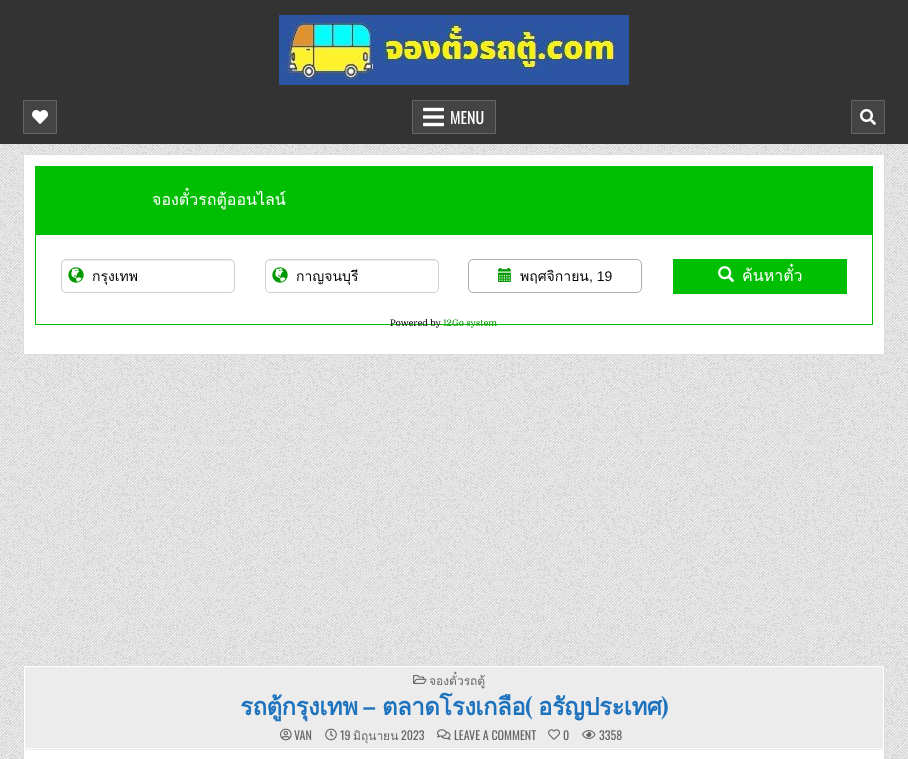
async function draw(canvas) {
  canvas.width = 908
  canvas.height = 759
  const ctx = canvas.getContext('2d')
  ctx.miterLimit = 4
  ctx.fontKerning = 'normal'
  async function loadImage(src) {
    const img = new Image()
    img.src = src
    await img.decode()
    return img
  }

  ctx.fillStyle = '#fff'
  ctx.fillRect(0, 0, 908, 759)
  ctx.drawImage(await loadImage('image0.png'), 0, 144, 908, 615)
  ctx.fillStyle = '#333'
  ctx.fillRect(0, 0, 908, 144)
  ctx.drawImage(await loadImage('image1.png'), 279, 15, 350, 70)
  ctx.fillStyle = '#444'
  ctx.beginPath()
  ctx.rect(23.5, 100.5, 33, 33)
  ctx.fill()
  ctx.strokeStyle = '#666'
  ctx.stroke()
  ctx.drawImage(await loadImage('image2.png'), 32, 110, 16, 14)
  ctx.beginPath()
  ctx.rect(412.5, 100.5, 83, 33)
  ctx.fill()
  ctx.stroke()
  ctx.drawImage(await loadImage('image3.png'), 423, 107, 21, 20)
  ctx.font = '16px Oswald'
  ctx.fillStyle = '#fff'
  ctx.fillText('MENU', 450, 124)
  ctx.fillStyle = '#444'
  ctx.beginPath()
  ctx.rect(851.5, 100.5, 33, 33)
  ctx.fill()
  ctx.stroke()
  ctx.drawImage(await loadImage('image4.png'), 860, 109, 16, 16)
  ctx.fillStyle = '#fff'
  ctx.beginPath()
  ctx.rect(23.5, 154.5, 861, 200)
  ctx.fill()
  ctx.strokeStyle = '#ddd'
  ctx.stroke()
  ctx.strokeStyle = '#00bf02'
  ctx.strokeRect(35.5, 166.5, 837, 158)
  ctx.fillStyle = '#00bf02'
  ctx.fillRect(36, 167, 836, 68)
  ctx.font = '16px Loma'
  ctx.fillStyle = '#fff'
  ctx.fillText('จองตั๋วรถตู้ออนไลน์', 152, 205)
  ctx.fillStyle = '#ececec'
  ctx.beginPath()
  ctx.moveTo(66, 261)
  ctx.lineTo(230, 261)
  ctx.bezierCurveTo(232, 261, 234, 263, 234, 265)
  ctx.lineTo(234, 264)
  ctx.bezierCurveTo(234, 262, 232, 260, 230, 260)
  ctx.lineTo(66, 260)
  ctx.bezierCurveTo(64, 260, 62, 262, 62, 264)
  ctx.lineTo(62, 265)
  ctx.bezierCurveTo(62, 263, 64, 261, 66, 261)
  ctx.closePath()
  ctx.fill()
  ctx.beginPath()
  ctx.roundRect(61.5, 259.5, 173, 33, 4.5)
  ctx.strokeStyle = '#d1d1d1'
  ctx.stroke()
  ctx.drawImage(await loadImage('image5.png'), 68, 267, 16, 16)
  ctx.font = '14px Loma'
  ctx.fillStyle = '#000'
  ctx.fillText('กรุงเทพ', 92, 281)
  ctx.fillStyle = '#ececec'
  ctx.beginPath()
  ctx.moveTo(270, 261)
  ctx.lineTo(434, 261)
  ctx.bezierCurveTo(436, 261, 438, 263, 438, 265)
  ctx.lineTo(438, 264)
  ctx.bezierCurveTo(438, 262, 436, 260, 434, 260)
  ctx.lineTo(270, 260)
  ctx.bezierCurveTo(268, 260, 266, 262, 266, 264)
  ctx.lineTo(266, 265)
  ctx.bezierCurveTo(266, 263, 268, 261, 270, 261)
  ctx.closePath()
  ctx.fill()
  ctx.beginPath()
  ctx.roundRect(265.5, 259.5, 173, 33, 4.5)
  ctx.stroke()
  ctx.drawImage(await loadImage('image5.png'), 272, 267, 16, 16)
  ctx.fillStyle = '#000'
  ctx.fillText('กาญจนบุรี', 296, 281)
  ctx.beginPath()
  ctx.roundRect(468.5, 259.5, 173, 33, 4.5)
  ctx.strokeStyle = '#adadad'
  ctx.stroke()
  ctx.drawImage(await loadImage('image6.png'), 498, 268, 13, 14)
  ctx.fillText('พฤศจิกายน', 520, 281)
  ctx.font = '14px Liberation Sans'
  ctx.fillText(', 19', 589, 281)
  ctx.fillStyle = '#00bf02'
  ctx.fillRect(673, 259, 174, 35)
  ctx.drawImage(await loadImage('image7.png'), 718, 266, 17, 17)
  ctx.font = '16px Loma'
  ctx.fillStyle = '#fff'
  ctx.fillText('ค้นหาตั๋ว', 742, 281)
  ctx.font = '9px Domine'
  ctx.fillStyle = '#000'
  ctx.fillText('Powered by', 390, 326)
  ctx.fillStyle = '#009901'
  ctx.fillText('12Go system', 443, 326)
  ctx.fillStyle = '#fff'
  ctx.beginPath()
  ctx.rect(23.5, 665.5, 861, 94)
  ctx.fill()
  ctx.strokeStyle = '#ddd'
  ctx.stroke()
  ctx.fillStyle = '#ececec'
  ctx.fillRect(25, 667, 858, 81)
  ctx.fillStyle = '#eee'
  ctx.fillRect(25, 749, 858, 1)
  ctx.drawImage(await loadImage('image8.png'), 413, 675, 14, 9)
  ctx.font = '12px Loma'
  ctx.fillStyle = '#666'
  ctx.fillText('จองตั๋วรถตู้', 429, 685)
  ctx.letterSpacing = '-0.5px'
  ctx.font = 'bold 24px Loma'
  ctx.fillStyle = '#1e73be'
  ctx.fillText('รถตู้กรุงเทพ', 240, 715)
  ctx.font = 'bold 24px Playfair Display'
  ctx.fillText('–', 362, 715)
  ctx.font = 'bold 24px Loma'
  ctx.fillText('ตลาดโรงเกลือ', 382, 715)
  ctx.font = 'bold 24px Playfair Display'
  ctx.fillText('(', 525, 715)
  ctx.font = 'bold 24px Loma'
  ctx.fillText('อรัญประเทศ', 538, 715)
  ctx.font = 'bold 24px Playfair Display'
  ctx.fillText(')', 661, 715)
  ctx.drawImage(await loadImage('image9.png'), 280, 728, 12, 13)
  ctx.letterSpacing = '0px'
  ctx.font = '12px Oswald'
  ctx.fillStyle = '#666'
  ctx.fillText('VAN', 294, 740)
  ctx.drawImage(await loadImage('image10.png'), 325, 728, 12, 13)
  ctx.fillText('19', 340, 740)
  ctx.font = '12px Loma'
  ctx.fillText('มิถุนายน', 353, 740)
  ctx.font = '12px Oswald'
  ctx.fillText('2023', 401, 740)
  ctx.drawImage(await loadImage('image11.png'), 437, 729, 14, 11)
  ctx.fillText('LEAVE A COMMENT', 454, 740)
  ctx.drawImage(await loadImage('image12.png'), 548, 729, 12, 11)
  ctx.fillText('0', 563, 740)
  ctx.drawImage(await loadImage('image13.png'), 582, 730, 14, 9)
  ctx.fillText('3358', 599, 740)
}

draw(document.querySelector('canvas'))
